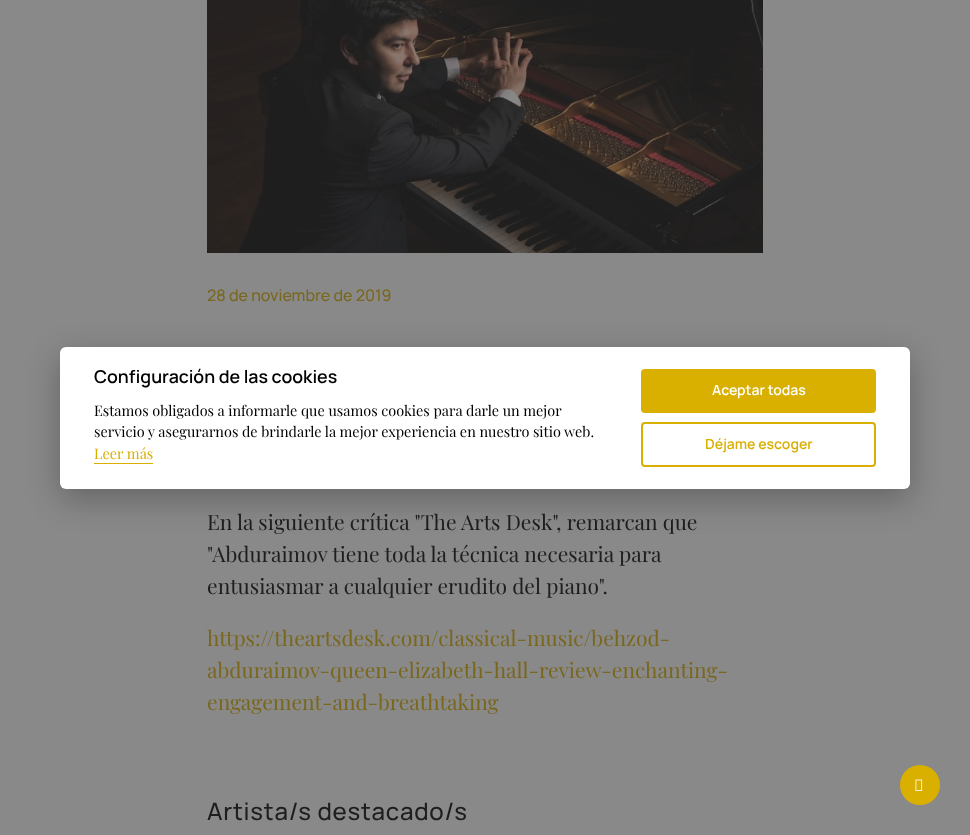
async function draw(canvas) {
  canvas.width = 970
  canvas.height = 835
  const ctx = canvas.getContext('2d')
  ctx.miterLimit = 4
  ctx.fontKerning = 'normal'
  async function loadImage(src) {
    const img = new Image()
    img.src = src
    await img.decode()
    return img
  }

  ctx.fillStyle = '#898989'
  ctx.fillRect(0, 0, 970, 835)
  ctx.drawImage(await loadImage('image0.png'), 207, 0, 556, 253)
  ctx.font = '500 16px Manrope'
  ctx.fillStyle = '#79671e'
  ctx.fillText('28 de noviembre de 2019', 207, 301)
  ctx.font = '21px Playfair Display'
  ctx.fillStyle = '#1e1e1e'
  ctx.fillText('En la siguiente crítica "The Arts Desk", remarcan que', 207, 530)
  ctx.fillText('"Abduraimov tiene toda la técnica necesaria para', 207, 562)
  ctx.fillText('entusiasmar a cualquier erudito del piano".', 207, 594)
  ctx.fillStyle = '#79671e'
  ctx.fillText('https://theartsdesk.com/classical-music/behzod-', 207, 646)
  ctx.fillText('abduraimov-queen-elizabeth-hall-review-enchanting-', 207, 678)
  ctx.fillText('engagement-and-breathtaking', 207, 710)
  ctx.letterSpacing = '0.75px'
  ctx.font = '500 24px Manrope'
  ctx.fillStyle = '#1e1e1e'
  ctx.fillText('Artista/s destacado/s', 207, 820)
  ctx.fillStyle = '#02020347'
  ctx.filter = 'blur(16px)'
  ctx.beginPath()
  ctx.roundRect(60, 357, 850, 142, 6)
  ctx.fill()
  ctx.filter = 'none'
  ctx.fillStyle = '#fff'
  ctx.beginPath()
  ctx.roundRect(60, 347, 850, 142, 6)
  ctx.fill()
  ctx.letterSpacing = '0px'
  ctx.font = '600 17.8px Manrope'
  ctx.fillStyle = '#000'
  ctx.fillText('Configuración de las cookies', 94, 383)
  ctx.font = '14.45px Playfair Display'
  ctx.fillText('Estamos obligados a informarle que usamos cookies para darle un mejor', 94, 416)
  ctx.fillText('servicio y asegurarnos de brindarle la mejor experiencia en nuestro sitio web.', 94, 437)
  ctx.fillStyle = '#d9af00'
  ctx.fillText('Leer más', 94, 459)
  ctx.fillRect(94, 463, 59, 1)
  ctx.beginPath()
  ctx.roundRect(642, 370, 233, 42, 3)
  ctx.fill()
  ctx.strokeStyle = '#d9af00'
  ctx.lineWidth = 2
  ctx.stroke()
  ctx.font = '600 14px Manrope'
  ctx.fillStyle = '#fff'
  ctx.fillText('Aceptar todas', 712, 395)
  ctx.beginPath()
  ctx.roundRect(642, 423, 233, 43, 3)
  ctx.stroke()
  ctx.fillStyle = '#d9af00'
  ctx.fillText('Déjame escoger', 705, 449)
  ctx.beginPath()
  ctx.arc(920, 785, 20, 0, 2 * Math.PI)
  ctx.fill()
  ctx.drawImage(await loadImage('image1.png'), 915, 779, 8, 12)
}

draw(document.querySelector('canvas'))
